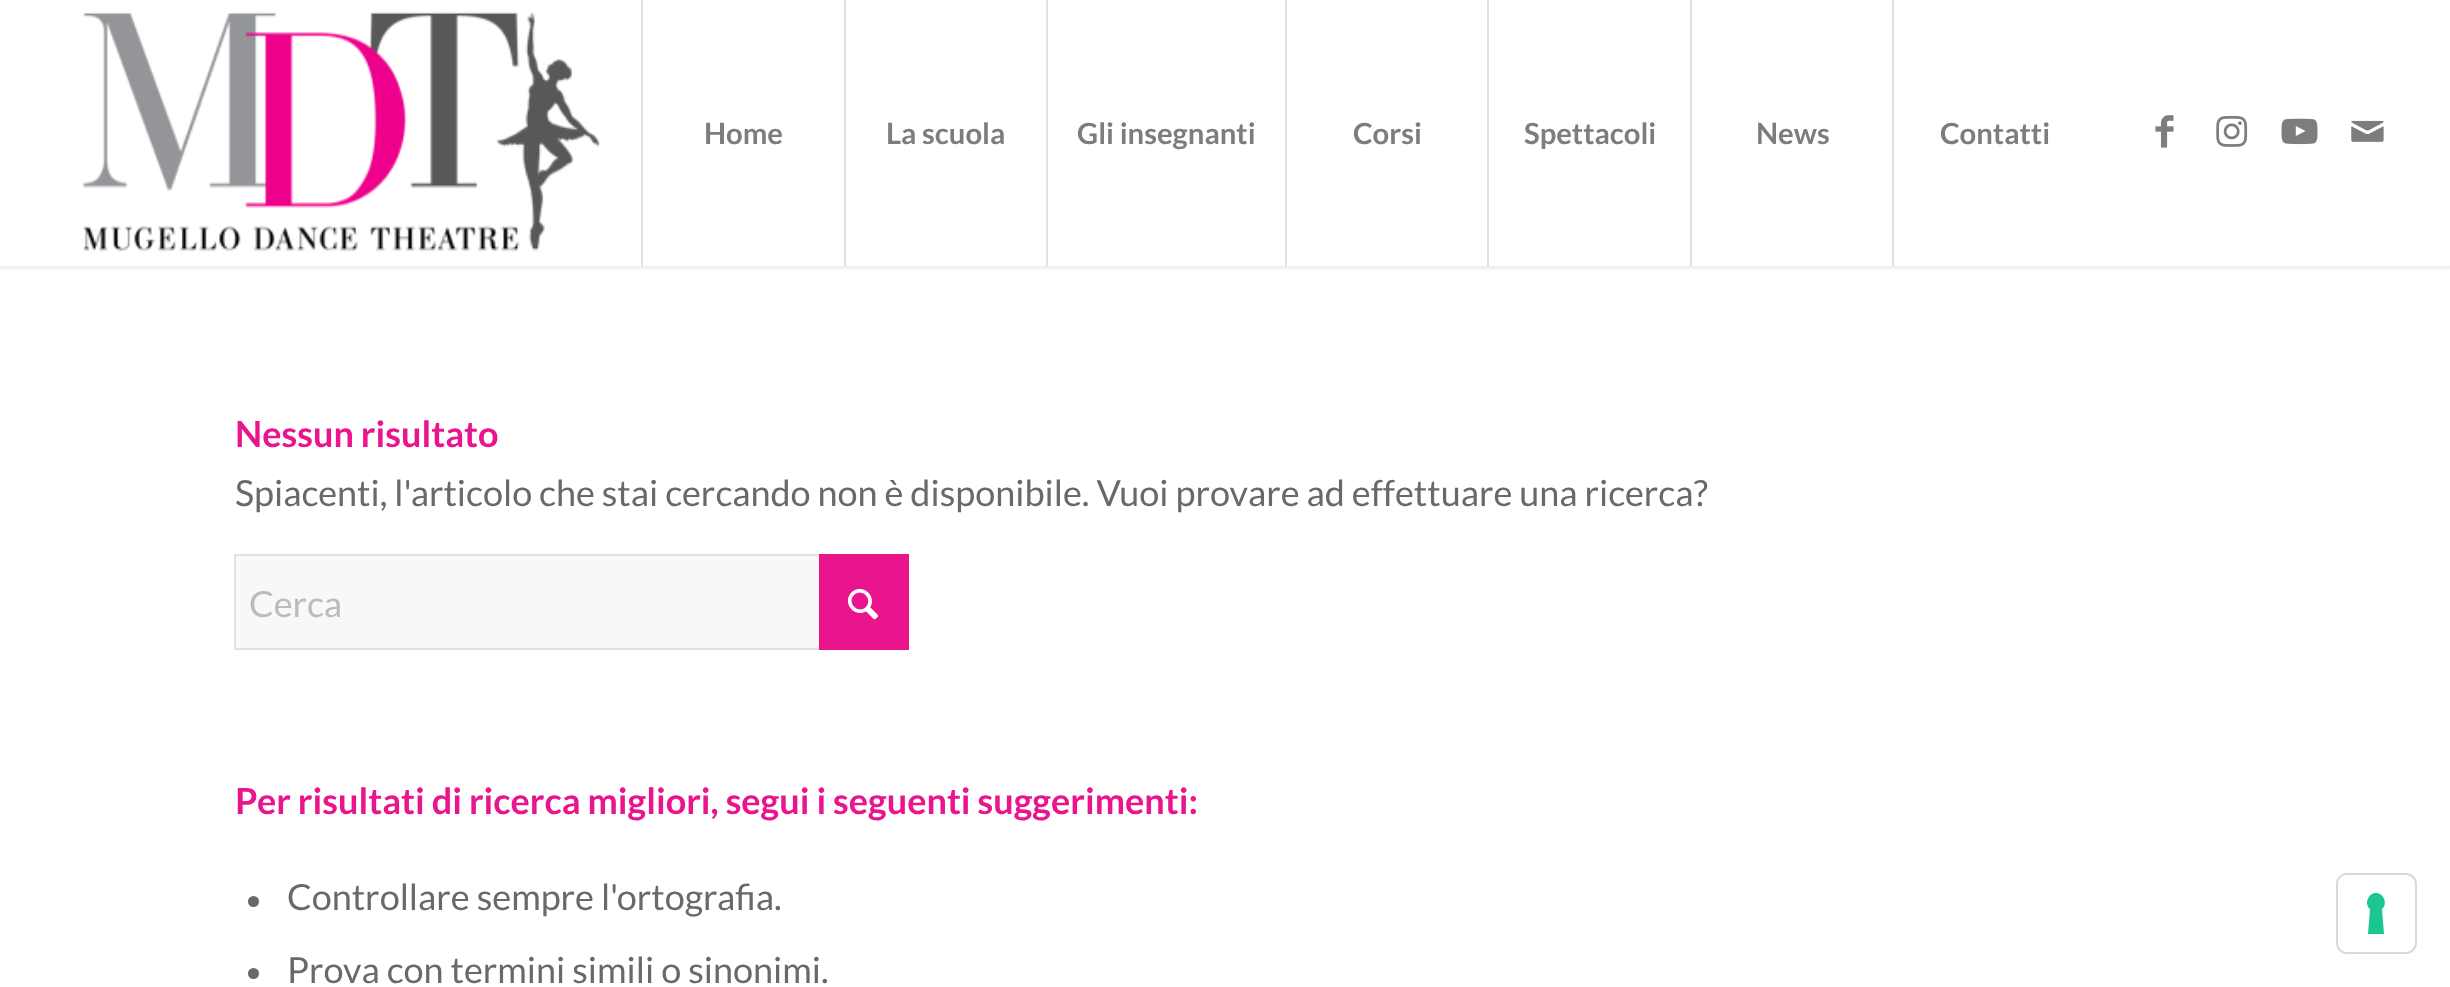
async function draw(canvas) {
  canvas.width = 2450
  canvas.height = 987
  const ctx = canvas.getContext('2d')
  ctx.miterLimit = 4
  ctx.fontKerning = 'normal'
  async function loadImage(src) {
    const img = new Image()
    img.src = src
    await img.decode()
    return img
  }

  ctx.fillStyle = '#fff'
  ctx.fillRect(0, 0, 2450, 987)
  ctx.fillStyle = '#0000001a'
  ctx.filter = 'blur(2px)'
  ctx.beginPath()
  ctx.rect(-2, -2, 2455, 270)
  ctx.fill()
  ctx.filter = 'none'
  ctx.fillStyle = '#fff'
  ctx.fillRect(0, 0, 2450, 266)
  ctx.drawImage(await loadImage('image0.png'), 83, 11, 517, 241)
  ctx.fillStyle = '#e1e1e1'
  ctx.fillRect(641, 0, 2, 266)
  ctx.font = 'bold 29.25px Lato'
  ctx.fillStyle = '#7d7d7d'
  ctx.fillText('Home', 704, 144)
  ctx.fillStyle = '#e1e1e1'
  ctx.fillRect(844, 0, 2, 266)
  ctx.fillStyle = '#7d7d7d'
  ctx.fillText('La scuola', 886, 144)
  ctx.fillStyle = '#e1e1e1'
  ctx.fillRect(1046, 0, 2, 266)
  ctx.fillStyle = '#7d7d7d'
  ctx.fillText('Gli insegnanti', 1077, 144)
  ctx.fillStyle = '#e1e1e1'
  ctx.fillRect(1285, 0, 2, 266)
  ctx.fillStyle = '#7d7d7d'
  ctx.fillText('Corsi', 1353, 144)
  ctx.fillStyle = '#e1e1e1'
  ctx.fillRect(1487, 0, 2, 266)
  ctx.fillStyle = '#7d7d7d'
  ctx.fillText('Spettacoli', 1524, 144)
  ctx.fillStyle = '#e1e1e1'
  ctx.fillRect(1690, 0, 2, 266)
  ctx.fillStyle = '#7d7d7d'
  ctx.fillText('News', 1756, 144)
  ctx.fillStyle = '#e1e1e1'
  ctx.fillRect(1892, 0, 2, 266)
  ctx.fillStyle = '#7d7d7d'
  ctx.fillText('Contatti', 1940, 144)
  ctx.drawImage(await loadImage('image1.png'), 2155, 115, 19, 33)
  ctx.drawImage(await loadImage('image2.png'), 2216, 115, 32, 32)
  ctx.drawImage(await loadImage('image3.png'), 2281, 118, 37, 27)
  ctx.drawImage(await loadImage('image4.png'), 2351, 120, 33, 22)
  ctx.font = 'bold 36px Lato'
  ctx.fillStyle = '#ea148d'
  ctx.fillText('Nessun risultato', 235, 447)
  ctx.font = '36px Lato'
  ctx.fillStyle = '#696969'
  ctx.fillText('Spiacenti, l\'articolo che stai cercando non è disponibile. Vuoi provare ad effettuare una ricerca?', 235, 506)
  ctx.fillStyle = '#f8f8f8'
  ctx.fillRect(236, 556, 583, 92)
  ctx.strokeStyle = '#e1e1e1'
  ctx.lineWidth = 2
  ctx.strokeRect(235, 555, 673, 94)
  ctx.fillStyle = '#ea148d'
  ctx.fillRect(819, 554, 90, 96)
  ctx.fillStyle = '#bbb'
  ctx.fillText('Cerca', 249, 617)
  ctx.drawImage(await loadImage('image5.png'), 847, 589, 32, 31)
  ctx.font = 'bold 36px Lato'
  ctx.fillStyle = '#ea148d'
  ctx.fillText('Per risultati di ricerca migliori, segui i seguenti suggerimenti:', 235, 814)
  ctx.fillStyle = '#696969'
  ctx.beginPath()
  ctx.arc(253.5, 901.5, 5.5, 0, 2 * Math.PI)
  ctx.fill()
  ctx.font = '36px Lato'
  ctx.fillText('Controllare sempre l\'ortografia.', 287, 910)
  ctx.beginPath()
  ctx.arc(253.5, 973.5, 5.5, 0, 2 * Math.PI)
  ctx.fill()
  ctx.fillText('Prova con termini simili o sinonimi.', 287, 983)
  ctx.beginPath()
  ctx.roundRect(2337, 874, 79, 79, 10)
  ctx.strokeStyle = '#d9d9d9'
  ctx.stroke()
  ctx.fillStyle = '#fff'
  ctx.beginPath()
  ctx.roundRect(2338, 875, 76, 77, 9)
  ctx.fill()
  ctx.fillStyle = '#1cc691'
  ctx.beginPath()
  ctx.moveTo(2376, 893)
  ctx.bezierCurveTo(2384, 893, 2388, 904, 2382, 909)
  ctx.lineTo(2384, 934)
  ctx.lineTo(2368, 934)
  ctx.lineTo(2370, 909)
  ctx.bezierCurveTo(2364, 904, 2368, 893, 2376, 893)
  ctx.closePath()
  ctx.fill('evenodd')
}

draw(document.querySelector('canvas'))
